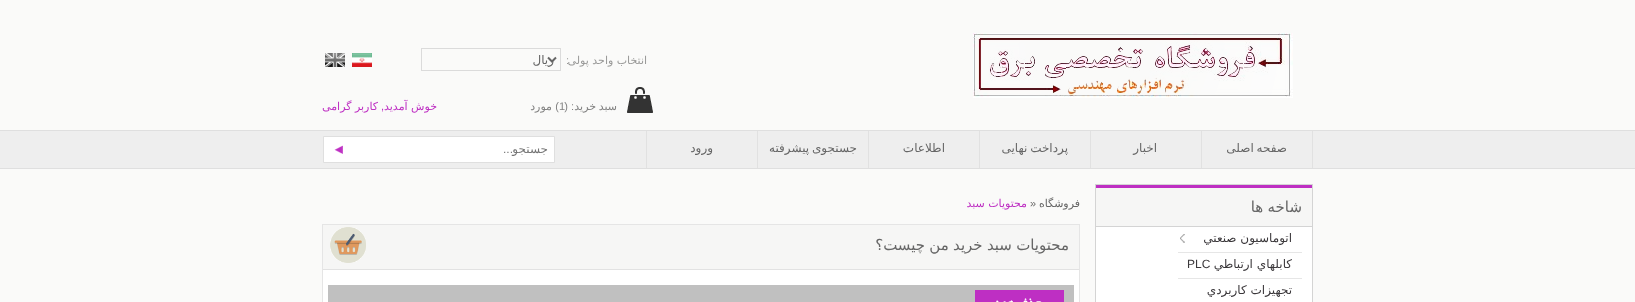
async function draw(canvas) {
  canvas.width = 1635
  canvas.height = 302
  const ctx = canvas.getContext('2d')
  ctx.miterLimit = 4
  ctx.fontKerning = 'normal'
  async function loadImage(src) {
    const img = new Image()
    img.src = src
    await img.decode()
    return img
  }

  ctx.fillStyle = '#fafaf9'
  ctx.fillRect(0, 0, 1635, 302)
  ctx.drawImage(await loadImage('image0.png'), 973, 33, 320, 65)
  ctx.direction = 'rtl'
  ctx.font = '11px DejaVu Sans'
  ctx.fillStyle = '#999998'
  ctx.fillText('انتخاب واحد پولی', 647, 64)
  ctx.font = '11px Liberation Sans'
  ctx.fillText(':', 569, 64)
  ctx.strokeStyle = '#dbdbdb'
  ctx.strokeRect(421.5, 48.5, 139, 22)
  ctx.beginPath()
  ctx.moveTo(548, 57.5)
  ctx.lineTo(552, 61.5)
  ctx.lineTo(556, 57.5)
  ctx.strokeStyle = '#666'
  ctx.lineWidth = 2
  ctx.stroke()
  ctx.font = '12px DejaVu Sans'
  ctx.fillStyle = '#666'
  ctx.fillText('ريال', 554, 64)
  ctx.drawImage(await loadImage('image1.png'), 352, 53, 20, 14)
  ctx.drawImage(await loadImage('image2.png'), 325, 53, 20, 14)
  ctx.drawImage(await loadImage('image3.png'), 627, 87, 26, 26)
  ctx.font = '11px DejaVu Sans'
  ctx.fillStyle = '#828282'
  ctx.fillText('سبد', 617, 110)
  ctx.fillText('خرید', 596, 110)
  ctx.font = '11px Liberation Sans'
  ctx.fillText(': (', 574, 110)
  ctx.direction = 'ltr'
  ctx.fillText('1', 559, 110)
  ctx.direction = 'rtl'
  ctx.fillText(')', 559, 110)
  ctx.font = '11px DejaVu Sans'
  ctx.fillText('مورد', 552, 110)
  ctx.fillStyle = '#be2fc3'
  ctx.fillText('خوش آمدید', 437, 110)
  ctx.font = '11px Liberation Sans'
  ctx.fillText(',', 384, 110)
  ctx.font = '11px DejaVu Sans'
  ctx.fillText('کاربر گرامی', 378, 110)
  ctx.fillStyle = '#eee'
  ctx.fillRect(0, 131, 1635, 37)
  ctx.fillStyle = '#dfdfdf'
  ctx.fillRect(0, 130, 1635, 1)
  ctx.fillRect(0, 168, 1635, 1)
  ctx.fillStyle = '#e1e1e1'
  ctx.fillRect(1312, 131, 1, 37)
  ctx.fillRect(1201, 131, 1, 37)
  ctx.wordSpacing = '-1px'
  ctx.font = '12px DejaVu Sans'
  ctx.fillStyle = '#666'
  ctx.fillText('صفحه اصلی', 1287, 152)
  ctx.fillStyle = '#e1e1e1'
  ctx.fillRect(1090, 131, 1, 37)
  ctx.wordSpacing = '0px'
  ctx.fillStyle = '#666'
  ctx.fillText('اخبار', 1157, 152)
  ctx.fillStyle = '#e1e1e1'
  ctx.fillRect(979, 131, 1, 37)
  ctx.wordSpacing = '-1px'
  ctx.fillStyle = '#666'
  ctx.fillText('پرداخت نهایی', 1068, 152)
  ctx.fillStyle = '#e1e1e1'
  ctx.fillRect(868, 131, 1, 37)
  ctx.wordSpacing = '0px'
  ctx.fillStyle = '#666'
  ctx.fillText('اطلاعات', 945, 152)
  ctx.fillStyle = '#e1e1e1'
  ctx.fillRect(757, 131, 1, 37)
  ctx.wordSpacing = '-1px'
  ctx.fillStyle = '#666'
  ctx.fillText('جستجوی پیشرفته', 857, 152)
  ctx.fillStyle = '#e1e1e1'
  ctx.fillRect(646, 131, 1, 37)
  ctx.wordSpacing = '0px'
  ctx.fillStyle = '#666'
  ctx.fillText('ورود', 713, 152)
  ctx.fillStyle = '#fff'
  ctx.beginPath()
  ctx.rect(323.5, 136.5, 231, 26)
  ctx.fill()
  ctx.strokeStyle = '#dfdfdf'
  ctx.lineWidth = 1
  ctx.stroke()
  ctx.fillStyle = '#757575'
  ctx.fillText('جستجو', 548, 153)
  ctx.font = '12px Liberation Sans'
  ctx.fillText('...', 513, 153)
  ctx.drawImage(await loadImage('image4.png'), 334, 145, 9, 9)
  ctx.strokeStyle = '#d4d4d4'
  ctx.strokeRect(1095.5, 184.5, 217, 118)
  ctx.fillStyle = '#f6f6f5'
  ctx.fillRect(1096, 188, 216, 38)
  ctx.fillStyle = '#be2fc3'
  ctx.fillRect(1096, 185, 216, 3)
  ctx.fillStyle = '#d4d4d4'
  ctx.fillRect(1096, 226, 216, 1)
  ctx.wordSpacing = '-0.5px'
  ctx.font = '15px DejaVu Sans'
  ctx.fillStyle = '#666'
  ctx.fillText('شاخه ها', 1302, 212)
  ctx.fillStyle = '#fff'
  ctx.fillRect(1096, 227, 216, 75)
  ctx.fillStyle = '#e6e6e6'
  ctx.fillRect(1178, 252, 124, 1)
  ctx.drawImage(await loadImage('image5.png'), 1180, 234, 5, 9)
  ctx.wordSpacing = '0px'
  ctx.font = '12px DejaVu Sans'
  ctx.fillStyle = '#3b383b'
  ctx.fillText('اتوماسيون صنعتي', 1292, 242)
  ctx.fillStyle = '#e6e6e6'
  ctx.fillRect(1178, 278, 124, 1)
  ctx.fillStyle = '#3b383b'
  ctx.fillText('كابلهاي ارتباطي', 1292, 268)
  ctx.direction = 'ltr'
  ctx.font = '12px Liberation Sans'
  ctx.fillText('PLC', 1187, 268)
  ctx.direction = 'rtl'
  ctx.font = '12px DejaVu Sans'
  ctx.fillText('تجهيزات كاربردي', 1292, 294)
  ctx.font = '11px DejaVu Sans'
  ctx.fillStyle = '#666'
  ctx.fillText('فروشگاه', 1080, 207)
  ctx.direction = 'ltr'
  ctx.font = '11px Liberation Sans'
  ctx.fillStyle = '#6d6c6c'
  ctx.fillText('»', 1030, 207)
  ctx.direction = 'rtl'
  ctx.font = '11px DejaVu Sans'
  ctx.fillStyle = '#be2fc3'
  ctx.fillText('محتویات سبد', 1027, 207)
  ctx.fillStyle = '#fff'
  ctx.fillRect(323, 270, 756, 32)
  ctx.strokeStyle = '#e5e5e5'
  ctx.strokeRect(322.5, 224.5, 757, 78)
  ctx.fillStyle = '#f6f6f5'
  ctx.fillRect(323, 225, 756, 44)
  ctx.fillStyle = '#e2e2e2'
  ctx.fillRect(323, 269, 756, 1)
  ctx.wordSpacing = '-0.5px'
  ctx.font = '15px DejaVu Sans'
  ctx.fillStyle = '#666'
  ctx.fillText('محتویات سبد خرید من چیست؟', 1069, 250)
  ctx.drawImage(await loadImage('image6.png'), 330, 227, 36, 36)
  ctx.fillStyle = '#c0c0c0'
  ctx.fillRect(328, 285, 746, 17)
  ctx.drawImage(await loadImage('image7.png'), 975, 290, 89, 12)
}

draw(document.querySelector('canvas'))
